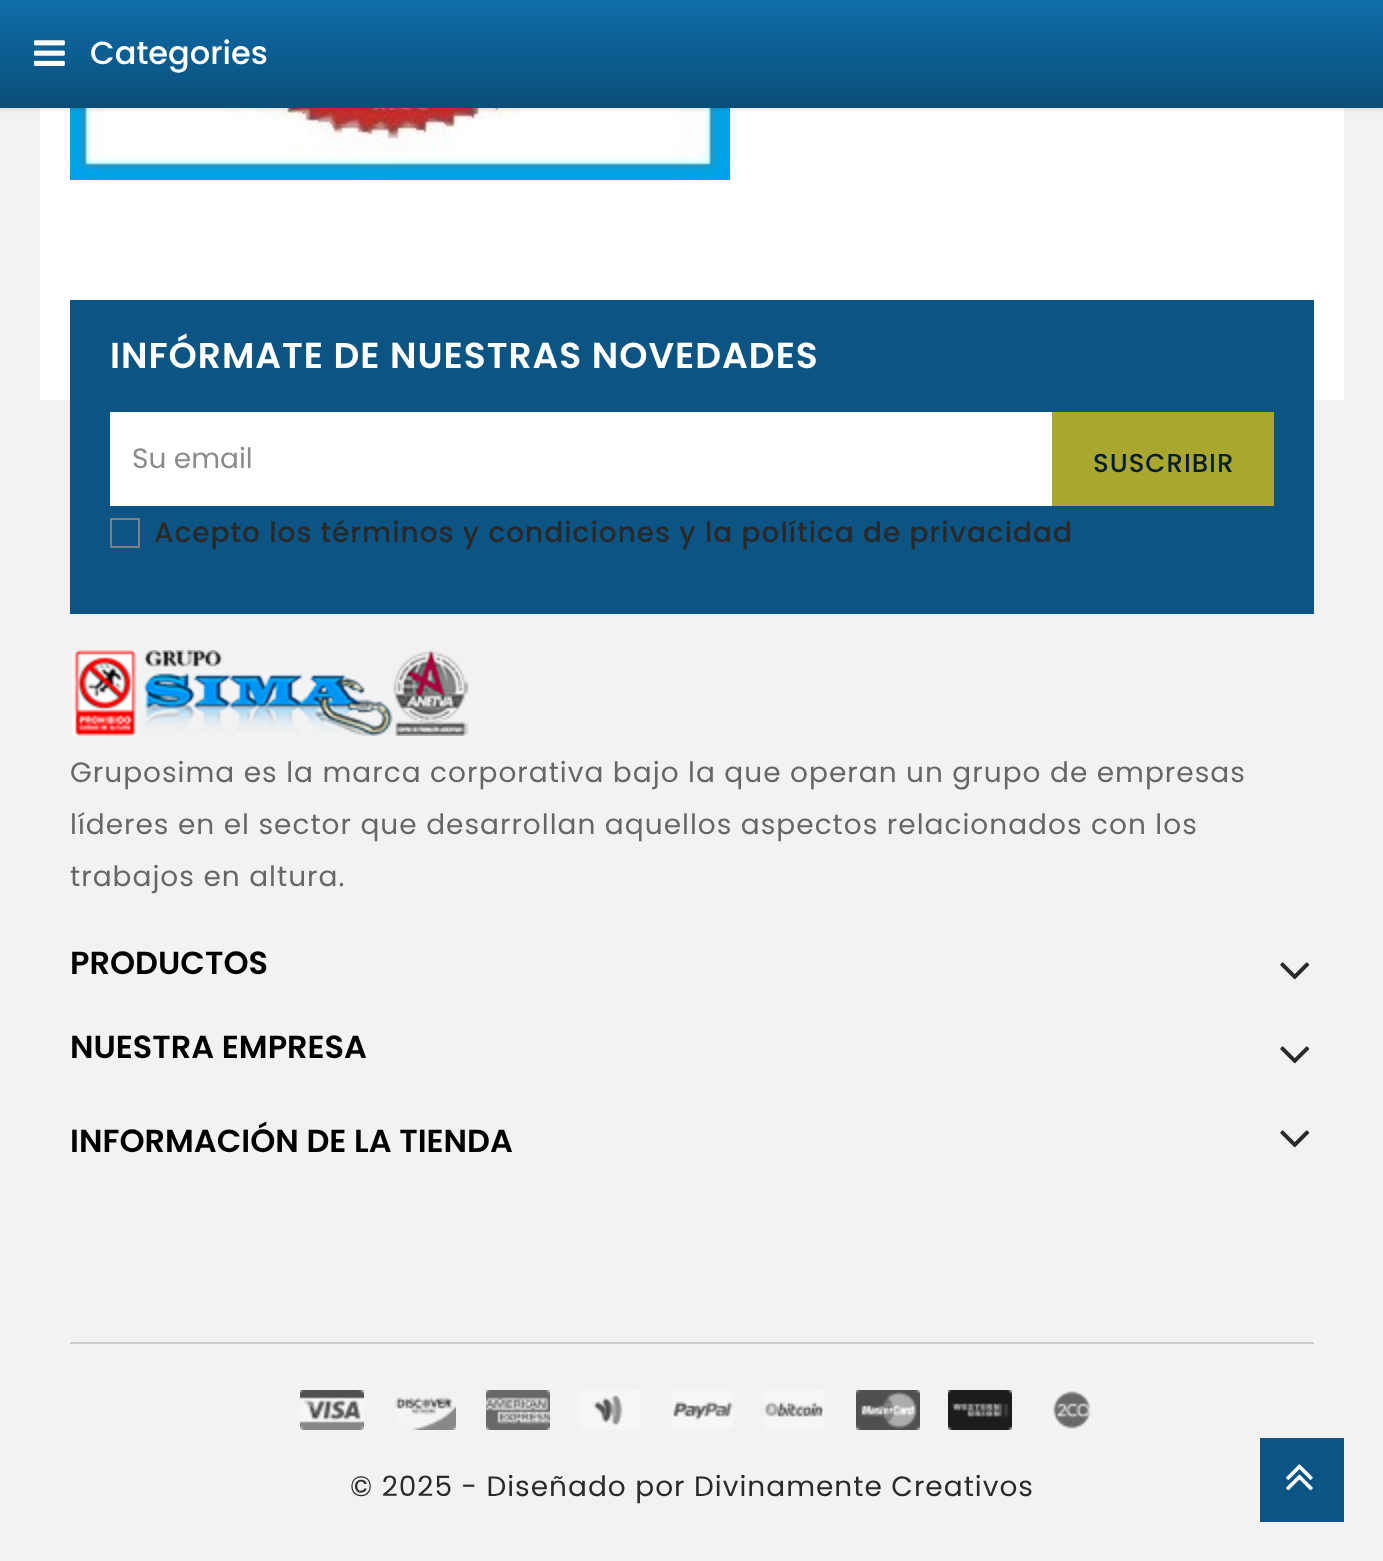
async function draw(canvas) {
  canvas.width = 1383
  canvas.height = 1561
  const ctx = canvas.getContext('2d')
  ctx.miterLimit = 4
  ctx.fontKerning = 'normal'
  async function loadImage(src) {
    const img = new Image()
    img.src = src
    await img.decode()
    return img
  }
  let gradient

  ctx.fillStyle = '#f2f2f2'
  ctx.fillRect(0, 0, 1383, 1561)
  ctx.fillStyle = '#fff'
  ctx.fillRect(40, 108, 1304, 292)
  ctx.drawImage(await loadImage('image1.png'), 70, 108, 660, 72)
  ctx.fillStyle = '#0000001a'
  ctx.filter = 'blur(2px)'
  ctx.beginPath()
  ctx.rect(-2, -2, 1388, 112)
  ctx.fill()
  ctx.filter = 'none'
  gradient = ctx.createLinearGradient(692, 0, 692, 108)
  gradient.addColorStop(0, '#0f6da9')
  gradient.addColorStop(1, '#0a4e79')
  ctx.fillStyle = gradient
  ctx.fillRect(0, 0, 1383, 108)
  ctx.drawImage(await loadImage('image0.png'), 34, 40, 31, 26)
  ctx.font = '500 32px Poppins'
  ctx.fillStyle = '#fff'
  ctx.fillText('Categories', 90, 64)
  ctx.fillStyle = '#0b5483'
  ctx.fillRect(70, 300, 1244, 314)
  ctx.letterSpacing = '1px'
  ctx.font = '600 36px Poppins'
  ctx.fillStyle = '#fff'
  ctx.fillText('INFÓRMATE DE NUESTRAS NOVEDADES', 110, 368)
  ctx.fillRect(110, 412, 942, 94)
  ctx.letterSpacing = '0px'
  ctx.font = '28px Poppins'
  ctx.fillStyle = '#8b8b8b'
  ctx.fillText('Su email', 132, 468)
  ctx.fillStyle = '#aaa72f'
  ctx.fillRect(1052, 412, 222, 94)
  ctx.letterSpacing = '1px'
  ctx.font = '500 26px Poppins'
  ctx.fillStyle = '#041d2e'
  ctx.fillText('SUSCRIBIR', 1093, 472)
  ctx.strokeStyle = '#808080'
  ctx.lineWidth = 2
  ctx.strokeRect(111, 519, 28, 28)
  ctx.font = '500 28px Poppins'
  ctx.fillStyle = '#292929'
  ctx.fillText('Acepto los términos y condiciones y la política de privacidad', 154, 542)
  ctx.drawImage(await loadImage('image2.png'), 72, 650, 397, 86)
  ctx.font = '28px Poppins'
  ctx.fillStyle = '#666'
  ctx.fillText('Gruposima es la marca corporativa bajo la que operan un grupo de empresas', 70, 782)
  ctx.fillText('líderes en el sector que desarrollan aquellos aspectos relacionados con los', 70, 834)
  ctx.fillText('trabajos en altura.', 70, 886)
  ctx.letterSpacing = '0px'
  ctx.font = '600 32px Poppins'
  ctx.fillStyle = '#000'
  ctx.fillText('PRODUCTOS', 70, 974)
  ctx.drawImage(await loadImage('image3.png'), 1280, 962, 30, 18)
  ctx.fillText('NUESTRA EMPRESA', 70, 1058)
  ctx.drawImage(await loadImage('image3.png'), 1280, 1046, 30, 18)
  ctx.fillText('INFORMACIÓN DE LA TIENDA', 70, 1152)
  ctx.drawImage(await loadImage('image3.png'), 1280, 1130, 30, 18)
  ctx.fillStyle = '#ccc'
  ctx.fillRect(70, 1342, 1244, 2)
  ctx.drawImage(await loadImage('image4.png'), 300, 1390, 64, 40)
  ctx.drawImage(await loadImage('image5.png'), 395, 1397, 61, 33)
  ctx.drawImage(await loadImage('image6.png'), 486, 1390, 64, 40)
  ctx.drawImage(await loadImage('image7.png'), 580, 1390, 60, 40)
  ctx.drawImage(await loadImage('image8.png'), 672, 1390, 61, 40)
  ctx.drawImage(await loadImage('image9.png'), 764, 1390, 60, 40)
  ctx.drawImage(await loadImage('image10.png'), 856, 1390, 64, 40)
  ctx.drawImage(await loadImage('image11.png'), 948, 1390, 64, 40)
  ctx.drawImage(await loadImage('image12.png'), 1053, 1391, 38, 38)
  ctx.letterSpacing = '1px'
  ctx.font = '28px Poppins'
  ctx.fillStyle = '#292929'
  ctx.fillText('© 2025 - Diseñado por Divinamente Creativos', 350, 1496)
  ctx.fillStyle = '#0b5483'
  ctx.fillRect(1260, 1438, 84, 84)
  ctx.drawImage(await loadImage('image13.png'), 1286, 1464, 27, 27)
}

draw(document.querySelector('canvas'))
